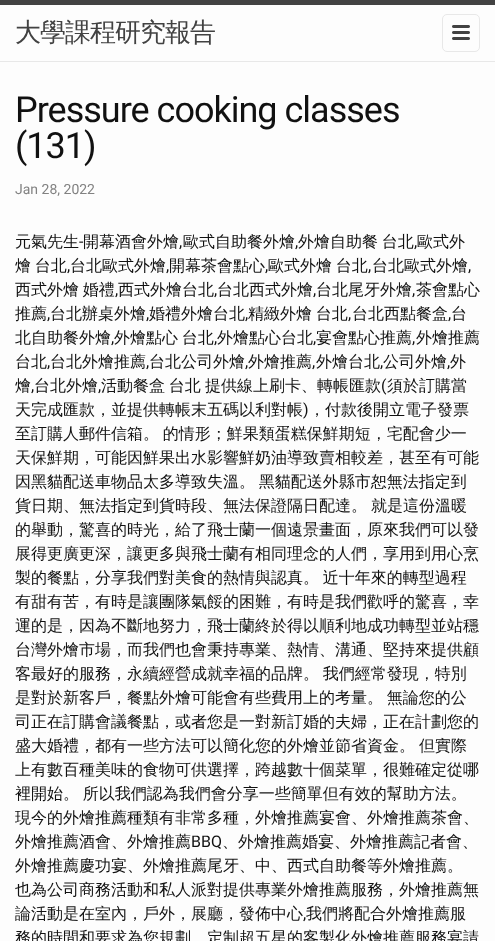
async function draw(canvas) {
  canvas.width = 495
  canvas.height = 941
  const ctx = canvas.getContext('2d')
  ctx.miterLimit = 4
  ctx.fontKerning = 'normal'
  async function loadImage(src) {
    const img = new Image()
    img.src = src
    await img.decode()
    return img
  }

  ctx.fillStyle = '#fdfdfd'
  ctx.fillRect(0, 0, 495, 941)
  ctx.fillStyle = '#424242'
  ctx.fillRect(0, 0, 495, 5)
  ctx.fillStyle = '#e8e8e8'
  ctx.fillRect(0, 61, 495, 1)
  ctx.letterSpacing = '-1px'
  ctx.font = '500 26px WenQuanYi Zen Hei'
  ctx.fillStyle = '#424242'
  ctx.fillText('大學課程研究報告', 15, 41)
  ctx.beginPath()
  ctx.roundRect(442.5, 14.5, 37, 37, 4.5)
  ctx.strokeStyle = '#e8e8e8'
  ctx.stroke()
  ctx.drawImage(await loadImage('image0.png'), 452, 25, 18, 15)
  ctx.font = '36px Roboto'
  ctx.fillStyle = '#111'
  ctx.fillText('Pressure cooking classes', 15, 122)
  ctx.fillText('(131)', 15, 158)
  ctx.letterSpacing = '0px'
  ctx.font = '14px Roboto'
  ctx.fillStyle = '#828282'
  ctx.fillText('Jan 28, 2022', 15, 194)
  ctx.font = '500 16px WenQuanYi Zen Hei'
  ctx.fillStyle = '#111'
  ctx.fillText('元氣先生', 15, 247)
  ctx.font = '16px Roboto'
  ctx.fillText('-', 79, 247)
  ctx.font = '500 16px WenQuanYi Zen Hei'
  ctx.fillText('開幕酒會外燴', 83, 247)
  ctx.fillText('歐式自助餐外燴', 183, 247)
  ctx.wordSpacing = '-1px'
  ctx.fillText('外燴自助餐 台北', 298, 247)
  ctx.wordSpacing = '0px'
  ctx.fillText('歐式外', 417, 247)
  ctx.font = '16px Roboto'
  ctx.fillText(',', 179, 247)
  ctx.fillText(',', 295, 247)
  ctx.fillText(',', 414, 247)
  ctx.wordSpacing = '-1px'
  ctx.font = '500 16px WenQuanYi Zen Hei'
  ctx.fillText('燴 台北', 15, 271)
  ctx.wordSpacing = '0px'
  ctx.font = '16px Roboto'
  ctx.fillText(',', 67, 271)
  ctx.font = '500 16px WenQuanYi Zen Hei'
  ctx.fillText('台北歐式外燴', 70, 271)
  ctx.font = '16px Roboto'
  ctx.fillText(',', 166, 271)
  ctx.font = '500 16px WenQuanYi Zen Hei'
  ctx.fillText('開幕茶會點心', 169, 271)
  ctx.font = '16px Roboto'
  ctx.fillText(',', 265, 271)
  ctx.wordSpacing = '-1px'
  ctx.font = '500 16px WenQuanYi Zen Hei'
  ctx.fillText('歐式外燴 台北', 268, 271)
  ctx.wordSpacing = '0px'
  ctx.font = '16px Roboto'
  ctx.fillText(',', 368, 271)
  ctx.font = '500 16px WenQuanYi Zen Hei'
  ctx.fillText('台北歐式外燴', 372, 271)
  ctx.font = '16px Roboto'
  ctx.fillText(',', 468, 271)
  ctx.wordSpacing = '-1px'
  ctx.font = '500 16px WenQuanYi Zen Hei'
  ctx.fillText('西式外燴 婚禮', 15, 295)
  ctx.wordSpacing = '0px'
  ctx.font = '16px Roboto'
  ctx.fillText(',', 115, 295)
  ctx.font = '500 16px WenQuanYi Zen Hei'
  ctx.fillText('西式外燴台北', 118, 295)
  ctx.font = '16px Roboto'
  ctx.fillText(',', 214, 295)
  ctx.font = '500 16px WenQuanYi Zen Hei'
  ctx.fillText('台北西式外燴', 217, 295)
  ctx.font = '16px Roboto'
  ctx.fillText(',', 313, 295)
  ctx.font = '500 16px WenQuanYi Zen Hei'
  ctx.fillText('台北尾牙外燴', 316, 295)
  ctx.font = '16px Roboto'
  ctx.fillText(',', 412, 295)
  ctx.font = '500 16px WenQuanYi Zen Hei'
  ctx.fillText('茶會點心', 416, 295)
  ctx.fillText('推薦', 15, 319)
  ctx.font = '16px Roboto'
  ctx.fillText(',', 47, 319)
  ctx.font = '500 16px WenQuanYi Zen Hei'
  ctx.fillText('台北辦桌外燴', 50, 319)
  ctx.font = '16px Roboto'
  ctx.fillText(',', 146, 319)
  ctx.font = '500 16px WenQuanYi Zen Hei'
  ctx.fillText('婚禮外燴台北', 149, 319)
  ctx.font = '16px Roboto'
  ctx.fillText(',', 245, 319)
  ctx.wordSpacing = '-1px'
  ctx.font = '500 16px WenQuanYi Zen Hei'
  ctx.fillText('精緻外燴 台北', 248, 319)
  ctx.wordSpacing = '0px'
  ctx.font = '16px Roboto'
  ctx.fillText(',', 348, 319)
  ctx.font = '500 16px WenQuanYi Zen Hei'
  ctx.fillText('台北西點餐盒', 352, 319)
  ctx.font = '16px Roboto'
  ctx.fillText(',', 448, 319)
  ctx.font = '500 16px WenQuanYi Zen Hei'
  ctx.fillText('台', 451, 319)
  ctx.fillText('北自助餐外燴', 15, 343)
  ctx.font = '16px Roboto'
  ctx.fillText(',', 111, 343)
  ctx.wordSpacing = '-1px'
  ctx.font = '500 16px WenQuanYi Zen Hei'
  ctx.fillText('外燴點心 台北', 114, 343)
  ctx.wordSpacing = '0px'
  ctx.font = '16px Roboto'
  ctx.fillText(',', 214, 343)
  ctx.font = '500 16px WenQuanYi Zen Hei'
  ctx.fillText('外燴點心台北', 217, 343)
  ctx.font = '16px Roboto'
  ctx.fillText(',', 313, 343)
  ctx.font = '500 16px WenQuanYi Zen Hei'
  ctx.fillText('宴會點心推薦', 316, 343)
  ctx.font = '16px Roboto'
  ctx.fillText(',', 412, 343)
  ctx.font = '500 16px WenQuanYi Zen Hei'
  ctx.fillText('外燴推薦', 416, 343)
  ctx.fillText('台北', 15, 367)
  ctx.font = '16px Roboto'
  ctx.fillText(',', 47, 367)
  ctx.font = '500 16px WenQuanYi Zen Hei'
  ctx.fillText('台北外燴推薦', 50, 367)
  ctx.font = '16px Roboto'
  ctx.fillText(',', 146, 367)
  ctx.font = '500 16px WenQuanYi Zen Hei'
  ctx.fillText('台北公司外燴', 149, 367)
  ctx.font = '16px Roboto'
  ctx.fillText(',', 245, 367)
  ctx.font = '500 16px WenQuanYi Zen Hei'
  ctx.fillText('外燴推薦', 248, 367)
  ctx.font = '16px Roboto'
  ctx.fillText(',', 312, 367)
  ctx.font = '500 16px WenQuanYi Zen Hei'
  ctx.fillText('外燴台北', 316, 367)
  ctx.font = '16px Roboto'
  ctx.fillText(',', 380, 367)
  ctx.font = '500 16px WenQuanYi Zen Hei'
  ctx.fillText('公司外燴', 383, 367)
  ctx.font = '16px Roboto'
  ctx.fillText(',', 447, 367)
  ctx.font = '500 16px WenQuanYi Zen Hei'
  ctx.fillText('外', 450, 367)
  ctx.fillText('燴', 15, 391)
  ctx.font = '16px Roboto'
  ctx.fillText(',', 31, 391)
  ctx.font = '500 16px WenQuanYi Zen Hei'
  ctx.fillText('台北外燴', 34, 391)
  ctx.font = '16px Roboto'
  ctx.fillText(',', 98, 391)
  ctx.wordSpacing = '-1px'
  ctx.font = '500 16px WenQuanYi Zen Hei'
  ctx.fillText('活動餐盒 台北', 101, 391)
  ctx.wordSpacing = '0px'
  ctx.fillText('提供線上刷卡、轉帳匯款', 205, 391)
  ctx.font = '16px Roboto'
  ctx.fillText('(', 381, 391)
  ctx.font = '500 16px WenQuanYi Zen Hei'
  ctx.fillText('須於訂購當', 387, 391)
  ctx.fillText('天完成匯款，並提供轉帳末五碼以利對帳', 15, 415)
  ctx.font = '16px Roboto'
  ctx.fillText(')', 303, 415)
  ctx.font = '500 16px WenQuanYi Zen Hei'
  ctx.fillText('，付款後開立電子發票', 309, 415)
  ctx.wordSpacing = '-1px'
  ctx.fillText('至訂購人郵件信箱。 的情形；鮮果類蛋糕保鮮期短，宅配會少一', 15, 439)
  ctx.wordSpacing = '0px'
  ctx.fillText('天保鮮期，可能因鮮果出水影響鮮奶油導致賣相較差，甚至有可能', 15, 463)
  ctx.wordSpacing = '-1px'
  ctx.fillText('因黑貓配送車物品太多導致失溫。 黑貓配送外縣市恕無法指定到', 15, 487)
  ctx.wordSpacing = '0px'
  ctx.fillText('貨日期、無法指定到貨時段、無法保證隔日配達。', 15, 511)
  ctx.fillText('就是這份溫暖', 371, 511)
  ctx.fillText('的舉動，驚喜的時光，給了飛士蘭一個遠景畫面，原來我們可以發', 15, 535)
  ctx.fillText('展得更廣更深，讓更多與飛士蘭有相同理念的人們，享用到用心烹', 15, 559)
  ctx.wordSpacing = '-1px'
  ctx.fillText('製的餐點，分享我們對美食的熱情與認真。 近十年來的轉型過程', 15, 583)
  ctx.wordSpacing = '0px'
  ctx.fillText('有甜有苦，有時是讓團隊氣餒的困難，有時是我們歡呼的驚喜，幸', 15, 607)
  ctx.fillText('運的是，因為不斷地努力，飛士蘭終於得以順利地成功轉型並站穩', 15, 631)
  ctx.fillText('台灣外燴市場，而我們也會秉持專業、熱情、溝通、堅持來提供顧', 15, 655)
  ctx.wordSpacing = '-1px'
  ctx.fillText('客最好的服務，永續經營成就幸福的品牌。 我們經常發現，特別', 15, 679)
  ctx.fillText('是對於新客戶，餐點外燴可能會有些費用上的考量。 無論您的公', 15, 703)
  ctx.wordSpacing = '0px'
  ctx.fillText('司正在訂購會議餐點，或者您是一對新訂婚的夫婦，正在計劃您的', 15, 727)
  ctx.fillText('盛大婚禮，都有一些方法可以簡化您的外燴並節省資金。', 15, 751)
  ctx.fillText('但實際', 419, 751)
  ctx.fillText('上有數百種美味的食物可供選擇，跨越數十個菜單，很難確定從哪', 15, 775)
  ctx.wordSpacing = '-1px'
  ctx.fillText('裡開始。 所以我們認為我們會分享一些簡單但有效的幫助方法。', 15, 799)
  ctx.wordSpacing = '0px'
  ctx.fillText('現今的外燴推薦種類有非常多種，外燴推薦宴會、外燴推薦茶會、', 15, 823)
  ctx.fillText('外燴推薦酒會、外燴推薦', 15, 847)
  ctx.font = '16px Roboto'
  ctx.fillText('BBQ', 191, 847)
  ctx.font = '500 16px WenQuanYi Zen Hei'
  ctx.fillText('、外燴推薦婚宴、外燴推薦記者會、', 222, 847)
  ctx.fillText('外燴推薦慶功宴、外燴推薦尾牙、中、西式自助餐等外燴推薦。', 15, 871)
  ctx.fillText('也為公司商務活動和私人派對提供專業外燴推薦服務，外燴推薦無', 15, 895)
  ctx.fillText('論活動是在室內，戶外，展廳，發佈中心', 15, 919)
  ctx.font = '16px Roboto'
  ctx.fillText(',', 303, 919)
  ctx.font = '500 16px WenQuanYi Zen Hei'
  ctx.fillText('我們將配合外燴推薦服', 306, 919)
  ctx.fillText('務的時間和要求為您規劃、定制超五星的客製化外燴推薦服務宴請', 15, 943)
}

draw(document.querySelector('canvas'))
